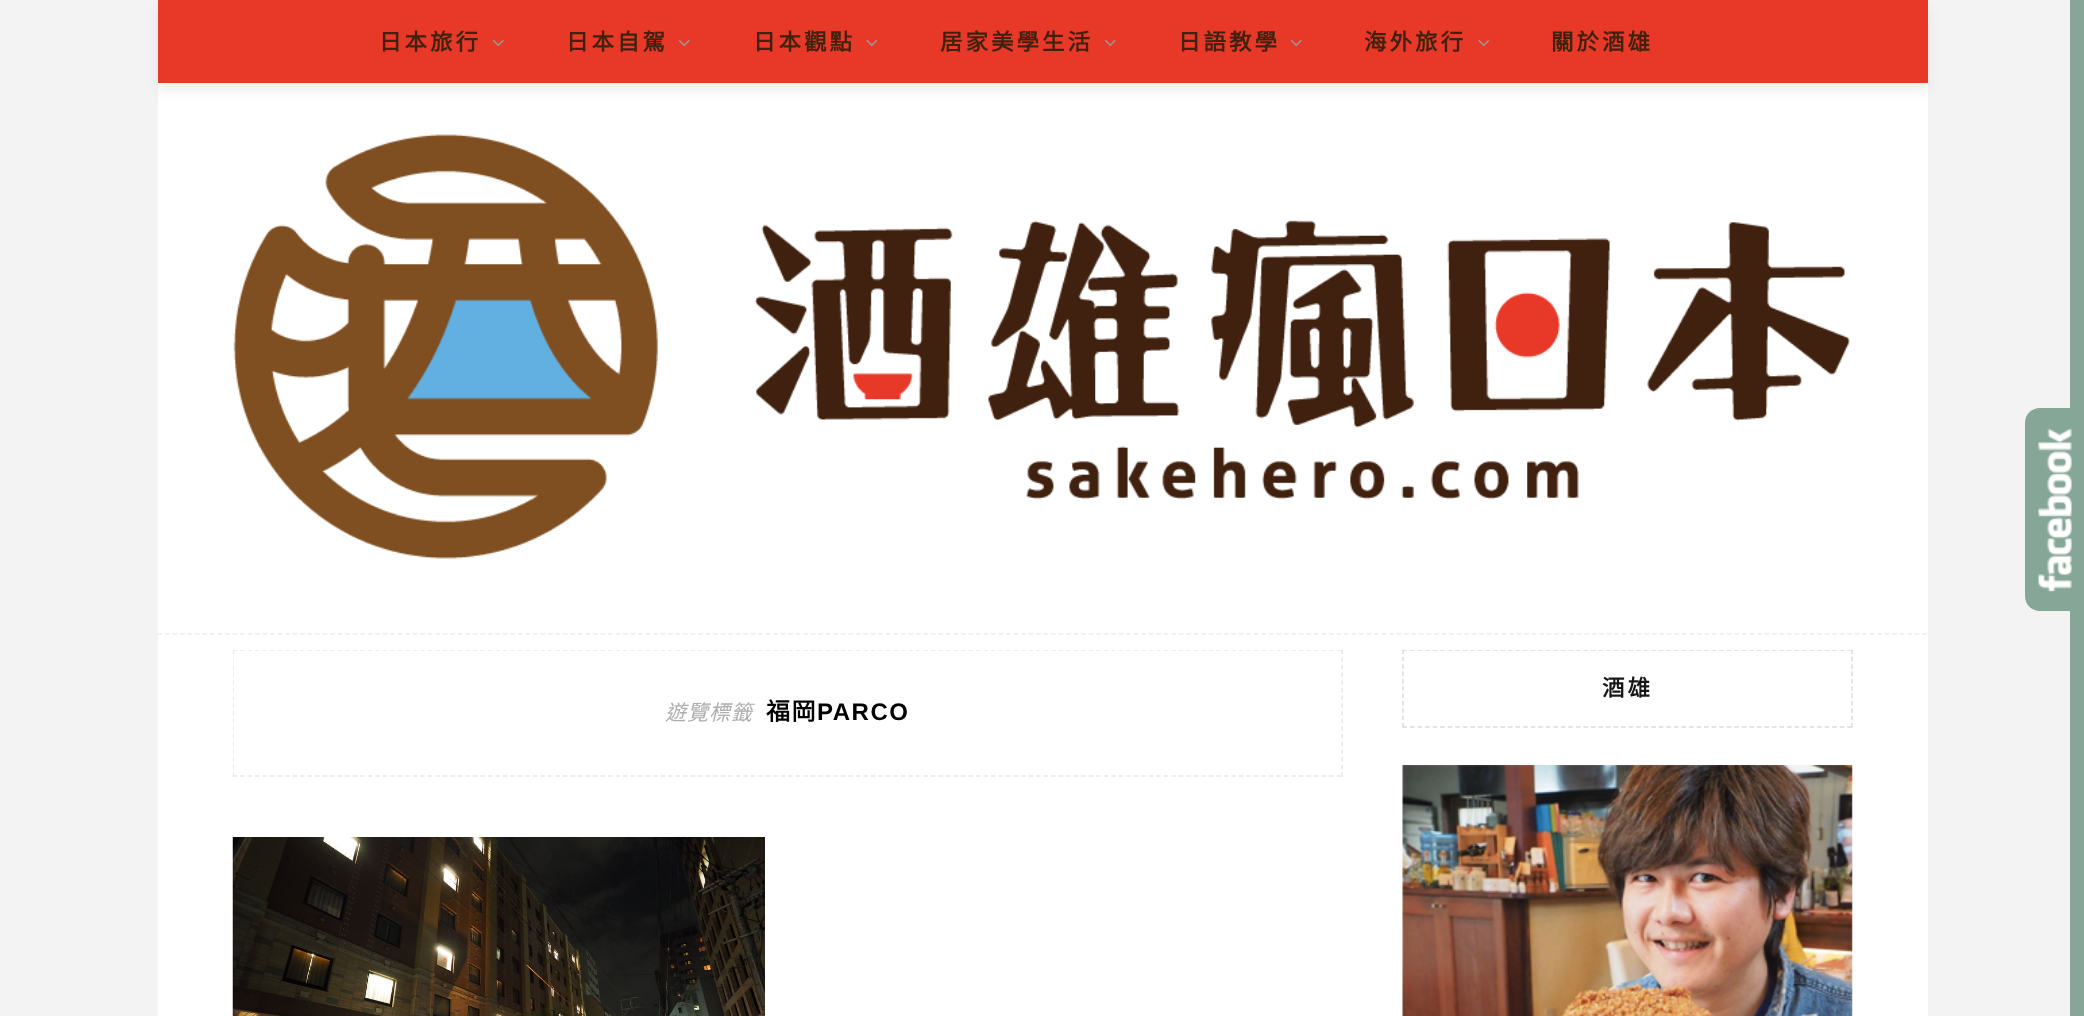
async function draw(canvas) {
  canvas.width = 2084
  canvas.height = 1016
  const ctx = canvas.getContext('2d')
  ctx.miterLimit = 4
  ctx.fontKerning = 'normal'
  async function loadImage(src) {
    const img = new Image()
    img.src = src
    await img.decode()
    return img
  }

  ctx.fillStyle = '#f3f3f3'
  ctx.fillRect(0, 0, 2084, 1016)
  ctx.fillStyle = '#fff'
  ctx.fillRect(158, 83, 1770, 933)
  ctx.fillStyle = '#16161614'
  ctx.filter = 'blur(6px)'
  ctx.beginPath()
  ctx.rect(158, 8, 1770, 82)
  ctx.fill()
  ctx.filter = 'none'
  ctx.fillStyle = '#e83828'
  ctx.fillRect(158, 0, 1770, 83)
  ctx.letterSpacing = '3px'
  ctx.font = 'bold 22.5px Noto Sans CJK TC'
  ctx.fillStyle = '#40220f'
  ctx.fillText('日本旅行', 379, 50)
  ctx.drawImage(await loadImage('image0.png'), 492, 40, 12, 7)
  ctx.fillText('日本自駕', 566, 50)
  ctx.drawImage(await loadImage('image0.png'), 678, 40, 12, 7)
  ctx.fillText('日本觀點', 753, 50)
  ctx.drawImage(await loadImage('image1.png'), 866, 40, 12, 7)
  ctx.fillText('居家美學生活', 940, 50)
  ctx.drawImage(await loadImage('image0.png'), 1104, 40, 12, 7)
  ctx.fillText('日語教學', 1178, 50)
  ctx.drawImage(await loadImage('image0.png'), 1290, 40, 12, 7)
  ctx.fillText('海外旅行', 1364, 50)
  ctx.drawImage(await loadImage('image1.png'), 1478, 40, 12, 7)
  ctx.fillText('關於酒雄', 1551, 50)
  ctx.beginPath()
  ctx.moveTo(157.5, 634)
  ctx.lineTo(1927.5, 634)
  ctx.strokeStyle = '#eee'
  ctx.lineWidth = 1.5
  ctx.setLineDash([4.5, 3.01])
  ctx.stroke()
  ctx.drawImage(await loadImage('image2.png'), 233, 134, 1617, 425)
  ctx.save()
  ctx.beginPath()
  ctx.rect(233, 650, 1620, 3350)
  ctx.clip()
  ctx.beginPath()
  ctx.moveTo(1402.5, 650)
  ctx.lineTo(1852.5, 650)
  ctx.strokeStyle = '#dbdbdb'
  ctx.setLineDash([4.5, 3.04])
  ctx.stroke()
  ctx.restore()
  ctx.beginPath()
  ctx.moveTo(1852, 649.5)
  ctx.lineTo(1852, 727.5)
  ctx.strokeStyle = '#dbdbdb'
  ctx.setLineDash([4.5, 2.85])
  ctx.stroke()
  ctx.beginPath()
  ctx.moveTo(1402.5, 727)
  ctx.lineTo(1852.5, 727)
  ctx.setLineDash([4.5, 3.04])
  ctx.stroke()
  ctx.beginPath()
  ctx.moveTo(1403, 649.5)
  ctx.lineTo(1403, 727.5)
  ctx.setLineDash([4.5, 2.85])
  ctx.stroke()
  ctx.fillStyle = '#161616'
  ctx.fillText('酒雄', 1602, 696)
  ctx.drawImage(await loadImage('image3.png'), 1402, 765, 451, 251)
  ctx.fillStyle = '#86a697'
  ctx.fillRect(2070, 0, 14, 1016)
  ctx.beginPath()
  ctx.moveTo(2040, 408)
  ctx.lineTo(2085, 408)
  ctx.lineTo(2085, 611)
  ctx.lineTo(2040, 611)
  ctx.bezierCurveTo(2031.5, 611, 2025, 604.5, 2025, 596)
  ctx.lineTo(2025, 423)
  ctx.bezierCurveTo(2025, 414.5, 2031.5, 408, 2040, 408)
  ctx.closePath()
  ctx.fill()
  ctx.drawImage(await loadImage('image4.png'), 2038, 428, 34, 164)
  ctx.save()
  ctx.beginPath()
  ctx.rect(233, 650, 1110, 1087)
  ctx.clip()
  ctx.beginPath()
  ctx.moveTo(232.5, 650)
  ctx.lineTo(1342.5, 650)
  ctx.strokeStyle = '#e8e8e8'
  ctx.setLineDash([4.5, 3.01])
  ctx.stroke()
  ctx.restore()
  ctx.beginPath()
  ctx.moveTo(1342, 649.5)
  ctx.lineTo(1342, 777)
  ctx.strokeStyle = '#e8e8e8'
  ctx.setLineDash([4.5, 3.18])
  ctx.stroke()
  ctx.beginPath()
  ctx.moveTo(232.5, 776)
  ctx.lineTo(1342.5, 776)
  ctx.setLineDash([4.5, 3.01])
  ctx.stroke()
  ctx.save()
  ctx.beginPath()
  ctx.rect(233, 650, 1110, 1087)
  ctx.clip()
  ctx.beginPath()
  ctx.moveTo(233, 649.5)
  ctx.lineTo(233, 777)
  ctx.setLineDash([4.5, 3.18])
  ctx.stroke()
  ctx.restore()
  ctx.letterSpacing = '1px'
  ctx.font = 'italic 21px Noto Sans CJK TC'
  ctx.fillStyle = '#adadad'
  ctx.fillText('遊覽標籤', 665, 720)
  ctx.letterSpacing = '1.5px'
  ctx.font = 'bold 24px Noto Sans CJK TC'
  ctx.fillStyle = '#000'
  ctx.fillText('福岡', 766, 720)
  ctx.font = 'bold 24px Liberation Sans'
  ctx.fillText('PARCO', 817, 720)
  ctx.drawImage(await loadImage('image5.png'), 232, 837, 533, 179)
}

draw(document.querySelector('canvas'))
